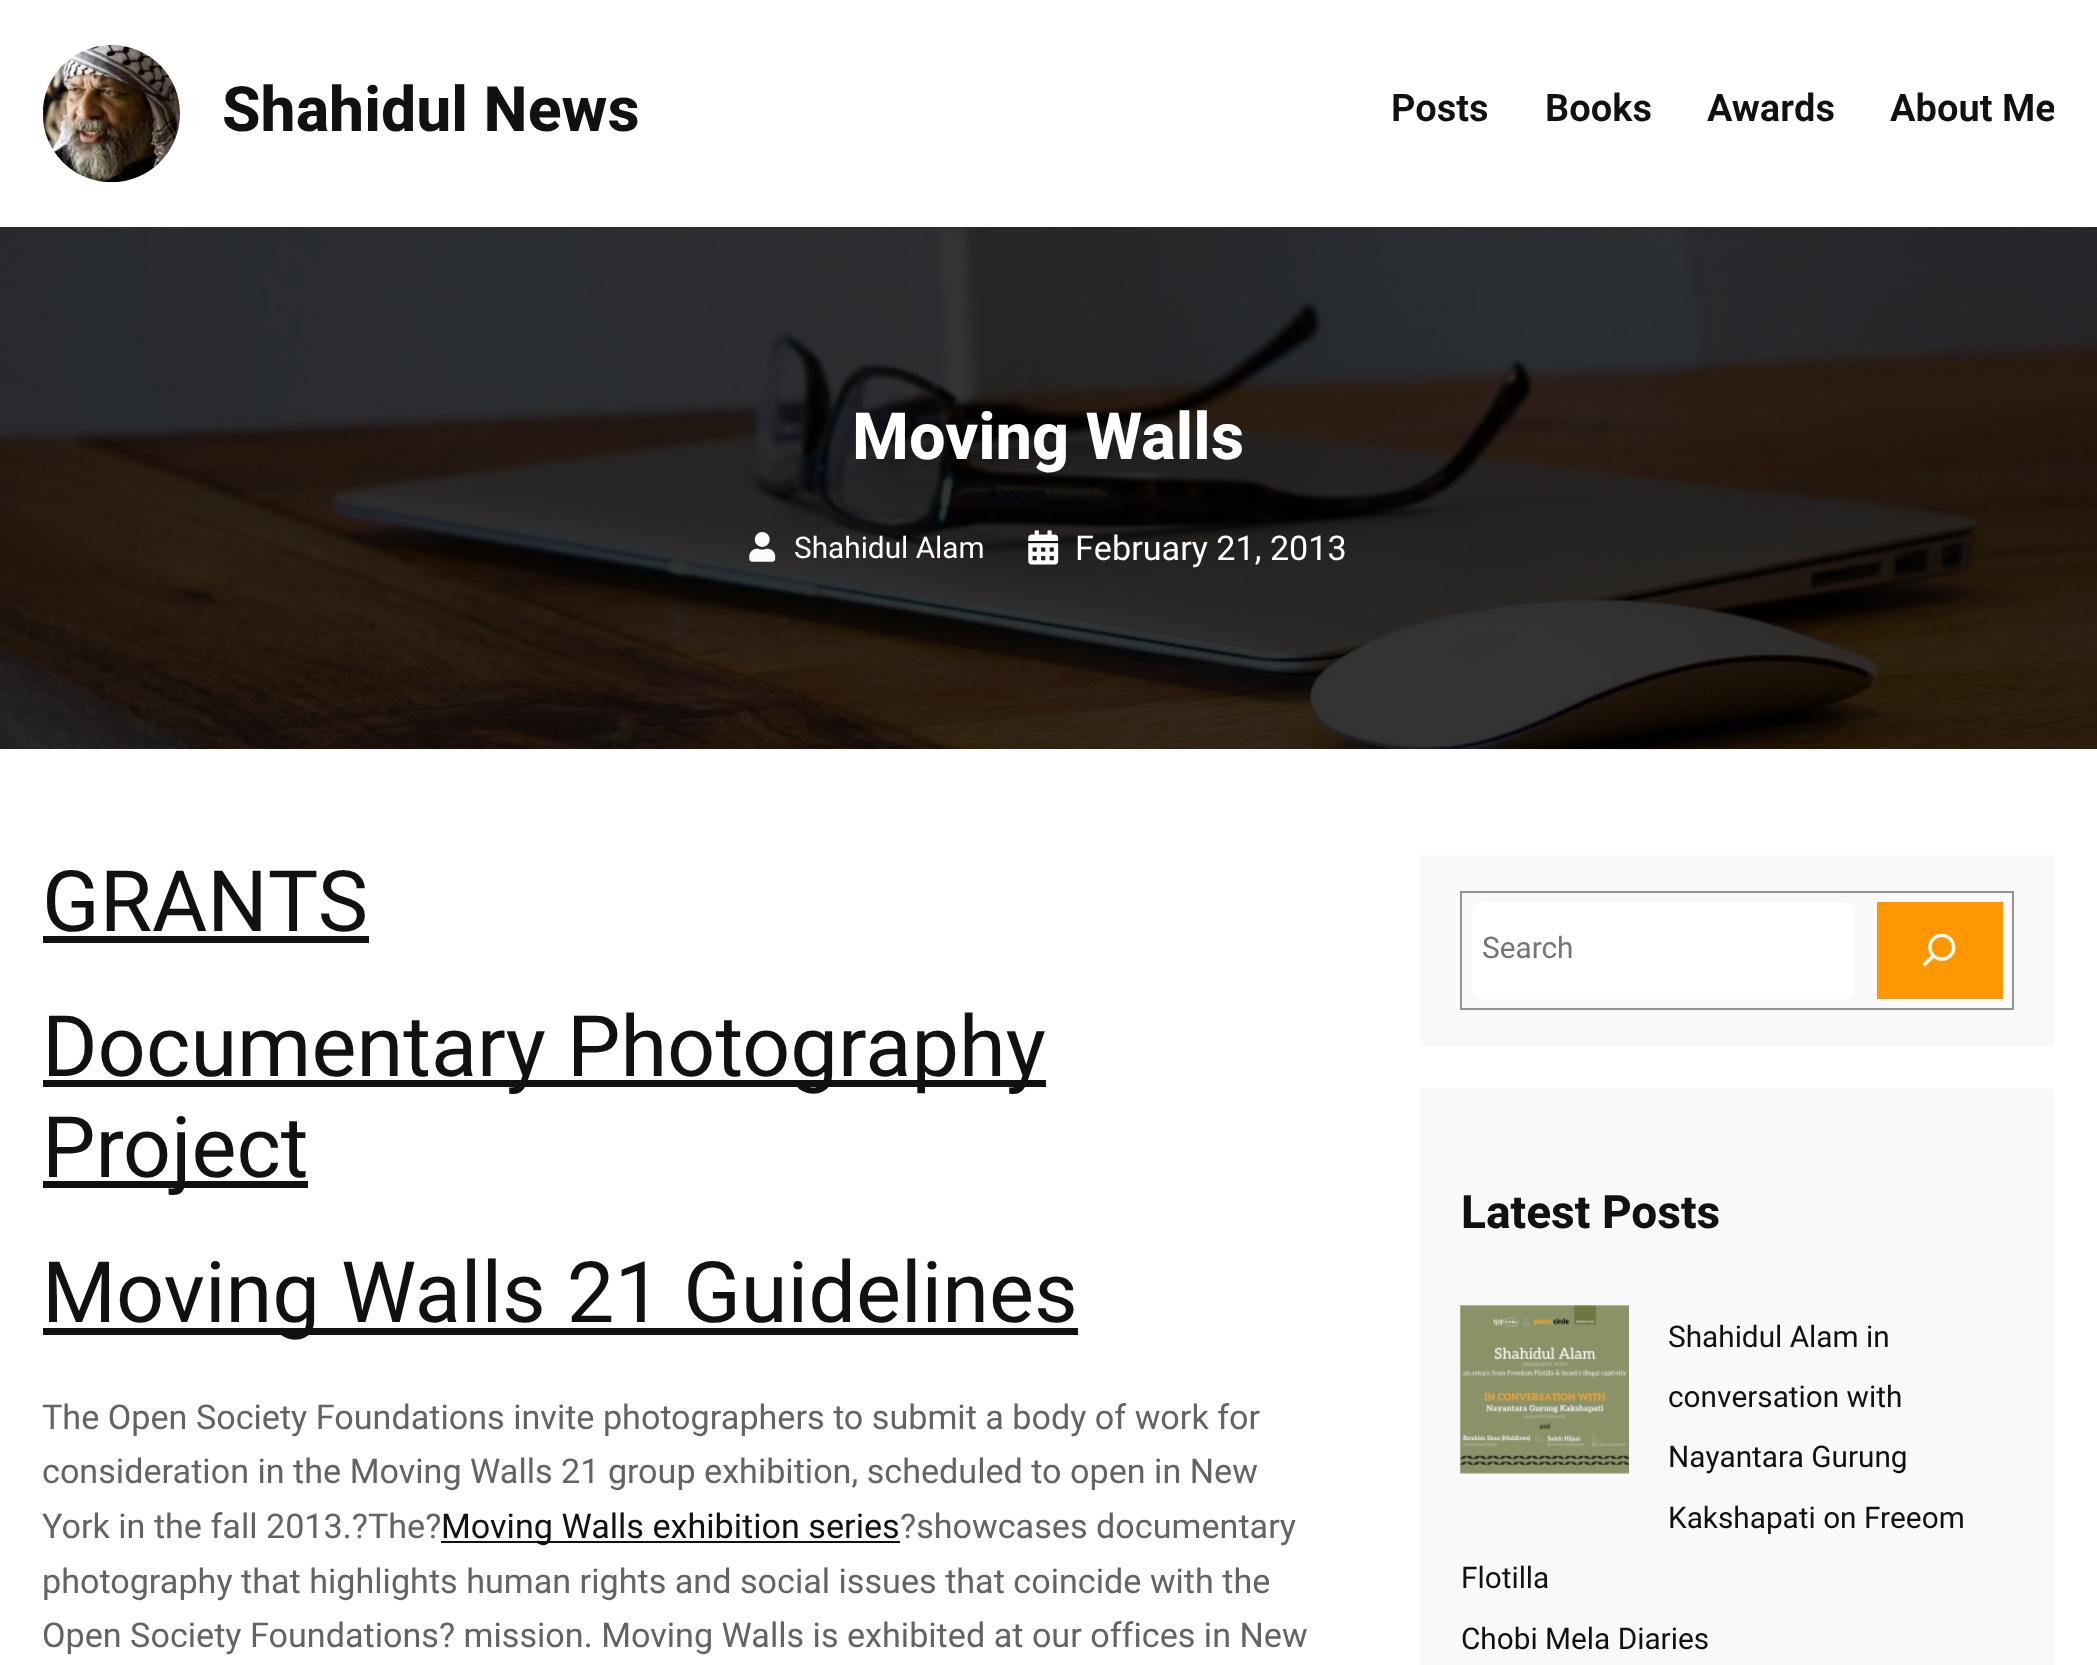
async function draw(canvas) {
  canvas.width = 2097
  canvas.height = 1665
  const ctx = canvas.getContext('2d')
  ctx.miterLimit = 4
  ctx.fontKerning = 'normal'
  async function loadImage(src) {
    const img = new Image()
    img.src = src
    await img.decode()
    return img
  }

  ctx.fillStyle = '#fff'
  ctx.fillRect(0, 0, 2097, 1665)
  ctx.fillStyle = '#333'
  ctx.fillRect(0, 227, 2097, 1)
  ctx.drawImage(await loadImage('image0.png'), 42, 45, 138, 138)
  ctx.font = 'bold 62.5px Heebo'
  ctx.fillStyle = '#111'
  ctx.fillText('Shahidul News', 222, 131)
  ctx.font = '600 38px Heebo'
  ctx.fillText('Posts', 1391, 121)
  ctx.fillText('Books', 1545, 121)
  ctx.fillText('Awards', 1707, 121)
  ctx.save()
  ctx.beginPath()
  ctx.rect(1890, 88, 164, 52)
  ctx.clip()
  ctx.fillText('About Me', 1890, 121)
  ctx.restore()
  ctx.drawImage(await loadImage('image1.png'), 0, 227, 2097, 523)
  ctx.font = 'bold 65px Heebo'
  ctx.fillStyle = '#fff'
  ctx.fillText('Moving Walls', 852, 459)
  ctx.drawImage(await loadImage('image2.png'), 749, 532, 27, 30)
  ctx.font = '29.75px Heebo'
  ctx.fillText('Shahidul Alam', 794, 558)
  ctx.drawImage(await loadImage('image3.png'), 1028, 530, 31, 35)
  ctx.font = '34.15px Heebo'
  ctx.fillText('February 21, 2013', 1075, 560)
  ctx.font = '84.75px Heebo'
  ctx.fillStyle = '#111'
  ctx.fillText('GRANTS', 42, 931)
  ctx.fillRect(43, 936, 326, 7)
  ctx.fillRect(43, 1080, 1003, 7)
  ctx.fillText('Documentary Photography', 42, 1076)
  ctx.fillRect(43, 1181, 265, 7)
  ctx.fillText('Project', 42, 1177)
  ctx.fillRect(43, 1328, 1035, 7)
  ctx.fillText('Moving Walls 21 Guidelines', 42, 1322)
  ctx.font = '34.15px Heebo'
  ctx.fillStyle = '#636363'
  ctx.fillText('The Open Society Foundations invite photographers to submit a body of work for', 42, 1429)
  ctx.fillText('consideration in the Moving Walls 21 group exhibition, scheduled to open in New', 42, 1483)
  ctx.fillText('York in the fall 2013.?The?', 42, 1538)
  ctx.fillStyle = '#111'
  ctx.fillRect(441, 1541, 459, 2)
  ctx.fillText('Moving Walls exhibition series', 441, 1538)
  ctx.fillStyle = '#636363'
  ctx.fillText('?showcases documentary', 900, 1538)
  ctx.fillText('photography that highlights human rights and social issues that coincide with the', 42, 1593)
  ctx.fillText('Open Society Foundations? mission. Moving Walls is exhibited at our offices in New', 42, 1647)
  ctx.fillStyle = '#f9f9f9'
  ctx.fillRect(1420, 855, 634, 191)
  ctx.strokeStyle = '#949494'
  ctx.lineWidth = 2
  ctx.strokeRect(1461, 892, 552, 117)
  ctx.fillStyle = '#fff'
  ctx.beginPath()
  ctx.roundRect(1472, 902, 382, 97, 11)
  ctx.fill()
  ctx.font = '29.75px Heebo'
  ctx.fillStyle = '#757575'
  ctx.fillText('Search', 1482, 958)
  ctx.fillStyle = '#ff9800'
  ctx.fillRect(1877, 902, 126, 97)
  ctx.drawImage(await loadImage('image4.png'), 1922, 933, 34, 34)
  ctx.fillStyle = '#f9f9f9'
  ctx.fillRect(1420, 1089, 634, 576)
  ctx.font = 'bold 46px Heebo'
  ctx.fillStyle = '#111'
  ctx.fillText('Latest Posts', 1461, 1228)
  ctx.drawImage(await loadImage('image5.png'), 1460, 1305, 169, 169)
  ctx.font = '29.75px Heebo'
  ctx.fillText('Shahidul Alam in', 1668, 1347)
  ctx.fillText('conversation with', 1668, 1407)
  ctx.fillText('Nayantara Gurung', 1668, 1467)
  ctx.fillText('Kakshapati on Freeom', 1668, 1528)
  ctx.fillText('Flotilla', 1461, 1588)
  ctx.fillText('Chobi Mela Diaries', 1461, 1649)
}

draw(document.querySelector('canvas'))
